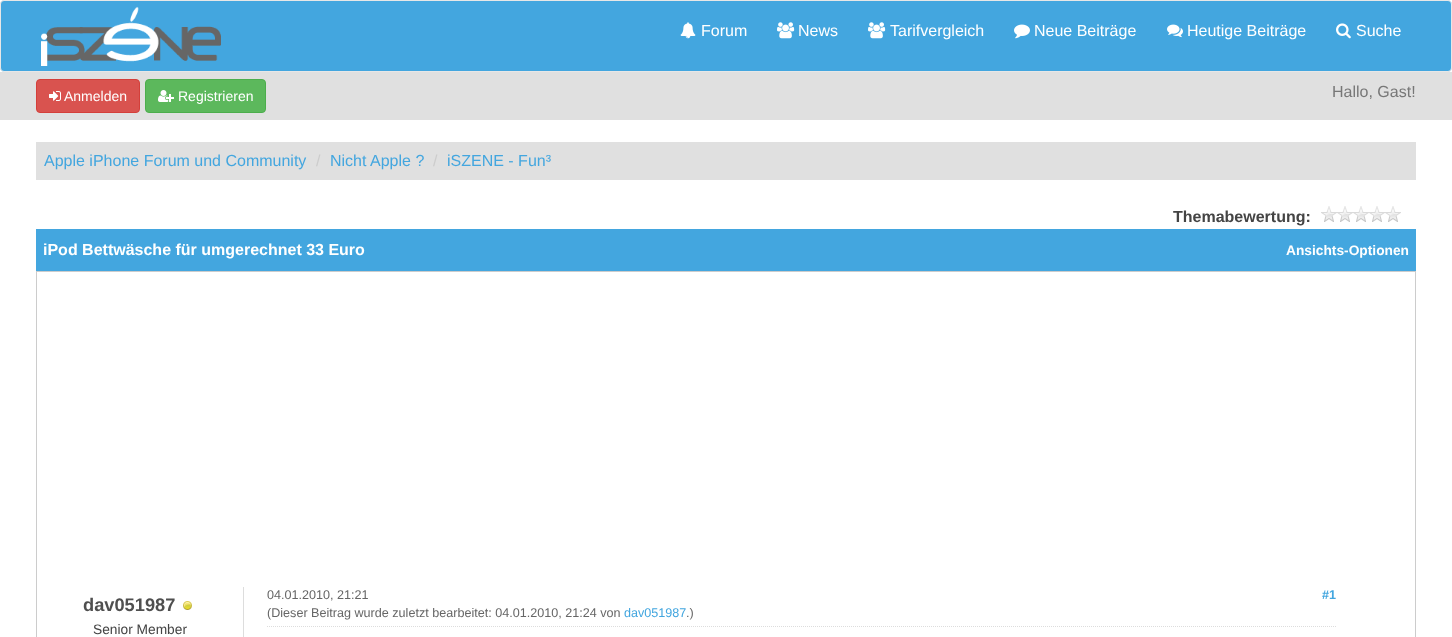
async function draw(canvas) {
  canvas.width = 1452
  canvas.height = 637
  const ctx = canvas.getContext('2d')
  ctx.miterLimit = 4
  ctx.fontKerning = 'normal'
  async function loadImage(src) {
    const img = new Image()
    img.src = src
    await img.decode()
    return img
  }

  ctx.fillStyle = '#fff'
  ctx.fillRect(0, 0, 1452, 637)
  ctx.fillStyle = '#43a6df'
  ctx.beginPath()
  ctx.roundRect(0.5, 0.5, 1451, 71, 3.5)
  ctx.fill()
  ctx.strokeStyle = '#e7e7e7'
  ctx.stroke()
  ctx.drawImage(await loadImage('image0.png'), 41, 6, 180, 60)
  ctx.drawImage(await loadImage('image1.png'), 680, 22, 16, 17)
  ctx.font = '16px Liberation Sans'
  ctx.fillStyle = '#fff'
  ctx.fillText('Forum', 701, 36)
  ctx.drawImage(await loadImage('image2.png'), 777, 22, 18, 17)
  ctx.fillText('News', 798, 36)
  ctx.drawImage(await loadImage('image2.png'), 868, 22, 18, 17)
  ctx.fillText('Tarifvergleich', 890, 36)
  ctx.drawImage(await loadImage('image3.png'), 1014, 24, 16, 15)
  ctx.fillText('Neue Beiträge', 1034, 36)
  ctx.drawImage(await loadImage('image4.png'), 1167, 24, 16, 14)
  ctx.fillText('Heutige Beiträge', 1187, 36)
  ctx.drawImage(await loadImage('image5.png'), 1336, 23, 15, 16)
  ctx.fillText('Suche', 1356, 36)
  ctx.fillStyle = '#e0e0e0'
  ctx.fillRect(0, 72, 1452, 48)
  ctx.fillStyle = '#d9534f'
  ctx.beginPath()
  ctx.roundRect(36.5, 79.5, 103, 33, 3.5)
  ctx.fill()
  ctx.strokeStyle = '#d43f3a'
  ctx.stroke()
  ctx.drawImage(await loadImage('image6.png'), 49, 91, 12, 10)
  ctx.font = '14px Liberation Sans'
  ctx.fillStyle = '#fff'
  ctx.fillText('Anmelden', 64, 101)
  ctx.fillStyle = '#5cb85c'
  ctx.beginPath()
  ctx.roundRect(145.5, 79.5, 120, 33, 3.5)
  ctx.fill()
  ctx.strokeStyle = '#4cae4c'
  ctx.stroke()
  ctx.drawImage(await loadImage('image7.png'), 158, 90, 16, 12)
  ctx.fillStyle = '#fff'
  ctx.fillText('Registrieren', 178, 101)
  ctx.font = '16px Liberation Sans'
  ctx.fillStyle = '#777'
  ctx.fillText('Hallo, Gast!', 1332, 97)
  ctx.fillStyle = '#e0e0e0'
  ctx.fillRect(36, 142, 1380, 38)
  ctx.fillStyle = '#43a6df'
  ctx.fillText('Apple iPhone Forum und Community', 44, 166)
  ctx.fillStyle = '#ccc'
  ctx.fillText('/', 316, 166)
  ctx.fillStyle = '#43a6df'
  ctx.fillText('Nicht Apple ?', 330, 166)
  ctx.fillStyle = '#ccc'
  ctx.fillText('/', 433, 166)
  ctx.fillStyle = '#43a6df'
  ctx.fillText('iSZENE - Fun³', 447, 166)
  ctx.font = 'bold 16px Liberation Sans'
  ctx.fillStyle = '#444'
  ctx.fillText('Themabewertung:', 1173, 222)
  ctx.drawImage(await loadImage('image8.png'), 1321, 206, 80, 16)
  ctx.fillStyle = '#43a6df'
  ctx.fillRect(36, 229, 1380, 42)
  ctx.fillStyle = '#fff'
  ctx.fillText('iPod Bettwäsche für umgerechnet 33 Euro', 43, 255)
  ctx.font = 'bold 13.75px Liberation Sans'
  ctx.fillText('Ansichts-Optionen', 1286, 255)
  ctx.strokeStyle = '#ccc'
  ctx.strokeRect(36.5, 271.5, 1379, 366)
  ctx.fillStyle = '#ddd'
  ctx.fillRect(243, 587, 1, 50)
  ctx.font = 'bold 18.25px Liberation Sans'
  ctx.fillStyle = '#4f4f4f'
  ctx.fillText('dav051987', 83, 611)
  ctx.drawImage(await loadImage('image9.png'), 183, 601, 9, 9)
  ctx.font = '13.75px Liberation Sans'
  ctx.fillStyle = '#444'
  ctx.fillText('Senior Member', 93, 634)
  ctx.beginPath()
  ctx.moveTo(267, 626.5)
  ctx.lineTo(1336, 626.5)
  ctx.strokeStyle = '#ddd'
  ctx.setLineDash([1, 1])
  ctx.stroke()
  ctx.font = '12.6px Liberation Sans'
  ctx.fillStyle = '#666'
  ctx.fillText('04.01.2010, 21:21', 267, 599)
  ctx.fillText('(Dieser Beitrag wurde zuletzt bearbeitet: 04.01.2010, 21:24 von', 267, 617)
  ctx.fillStyle = '#43a6df'
  ctx.fillText('dav051987', 624, 617)
  ctx.fillStyle = '#666'
  ctx.fillText('.)', 686, 617)
  ctx.font = 'bold 12.6px Liberation Sans'
  ctx.fillStyle = '#43a6df'
  ctx.fillText('#1', 1322, 599)
}

draw(document.querySelector('canvas'))
